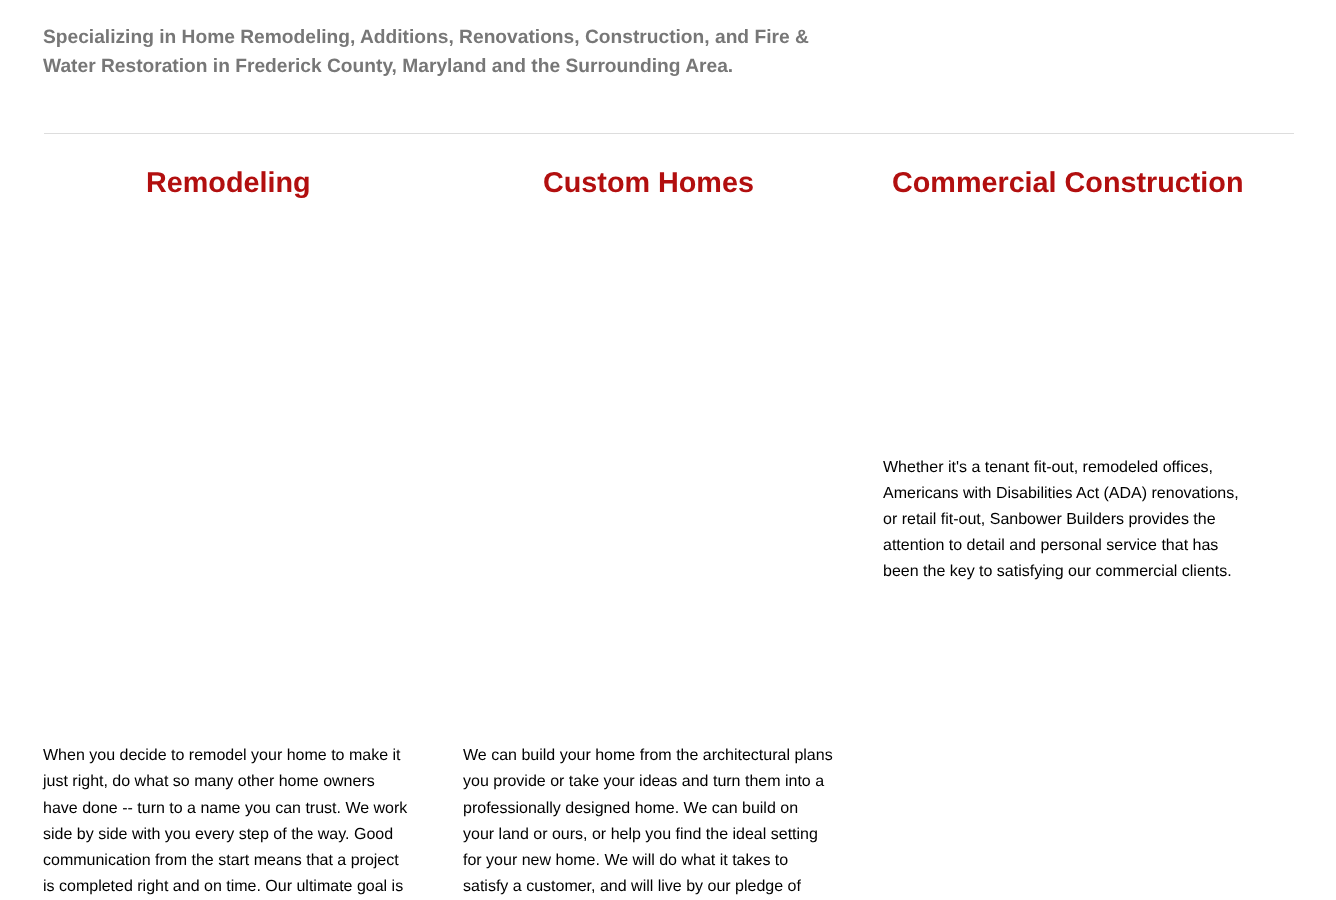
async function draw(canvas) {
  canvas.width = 1336
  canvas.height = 900
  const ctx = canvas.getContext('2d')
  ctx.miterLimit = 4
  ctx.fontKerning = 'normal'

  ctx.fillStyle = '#fff'
  ctx.fillRect(0, 0, 1336, 900)
  ctx.fillStyle = '#ddd'
  ctx.fillRect(44, 133, 1250, 1)
  ctx.font = 'bold 19.2px Liberation Sans'
  ctx.fillStyle = '#777'
  ctx.fillText('Specializing in Home Remodeling, Additions, Renovations, Construction, and Fire &', 43, 43)
  ctx.fillText('Water Restoration in Frederick County, Maryland and the Surrounding Area.', 43, 72)
  ctx.font = 'bold 28.75px Liberation Sans'
  ctx.fillStyle = '#b20f0f'
  ctx.fillText('Remodeling', 146, 192)
  ctx.font = '16px Liberation Sans'
  ctx.fillStyle = '#000'
  ctx.fillText('When you decide to remodel your home to make it', 43, 760)
  ctx.fillText('just right, do what so many other home owners', 43, 786)
  ctx.fillText('have done -- turn to a name you can trust. We work', 43, 813)
  ctx.fillText('side by side with you every step of the way. Good', 43, 839)
  ctx.fillText('communication from the start means that a project', 43, 865)
  ctx.fillText('is completed right and on time. Our ultimate goal is', 43, 891)
  ctx.font = 'bold 28.75px Liberation Sans'
  ctx.fillStyle = '#b20f0f'
  ctx.fillText('Custom Homes', 543, 192)
  ctx.font = '16px Liberation Sans'
  ctx.fillStyle = '#000'
  ctx.fillText('We can build your home from the architectural plans', 463, 760)
  ctx.fillText('you provide or take your ideas and turn them into a', 463, 786)
  ctx.fillText('professionally designed home. We can build on', 463, 813)
  ctx.fillText('your land or ours, or help you find the ideal setting', 463, 839)
  ctx.fillText('for your new home. We will do what it takes to', 463, 865)
  ctx.fillText('satisfy a customer, and will live by our pledge of', 463, 891)
  ctx.font = 'bold 28.75px Liberation Sans'
  ctx.fillStyle = '#b20f0f'
  ctx.fillText('Commercial Construction', 892, 192)
  ctx.font = '16px Liberation Sans'
  ctx.fillStyle = '#000'
  ctx.fillText('Whether it\'s a tenant fit-out, remodeled offices,', 883, 472)
  ctx.fillText('Americans with Disabilities Act (ADA) renovations,', 883, 498)
  ctx.fillText('or retail fit-out, Sanbower Builders provides the', 883, 524)
  ctx.fillText('attention to detail and personal service that has', 883, 550)
  ctx.fillText('been the key to satisfying our commercial clients.', 883, 576)
}

draw(document.querySelector('canvas'))
